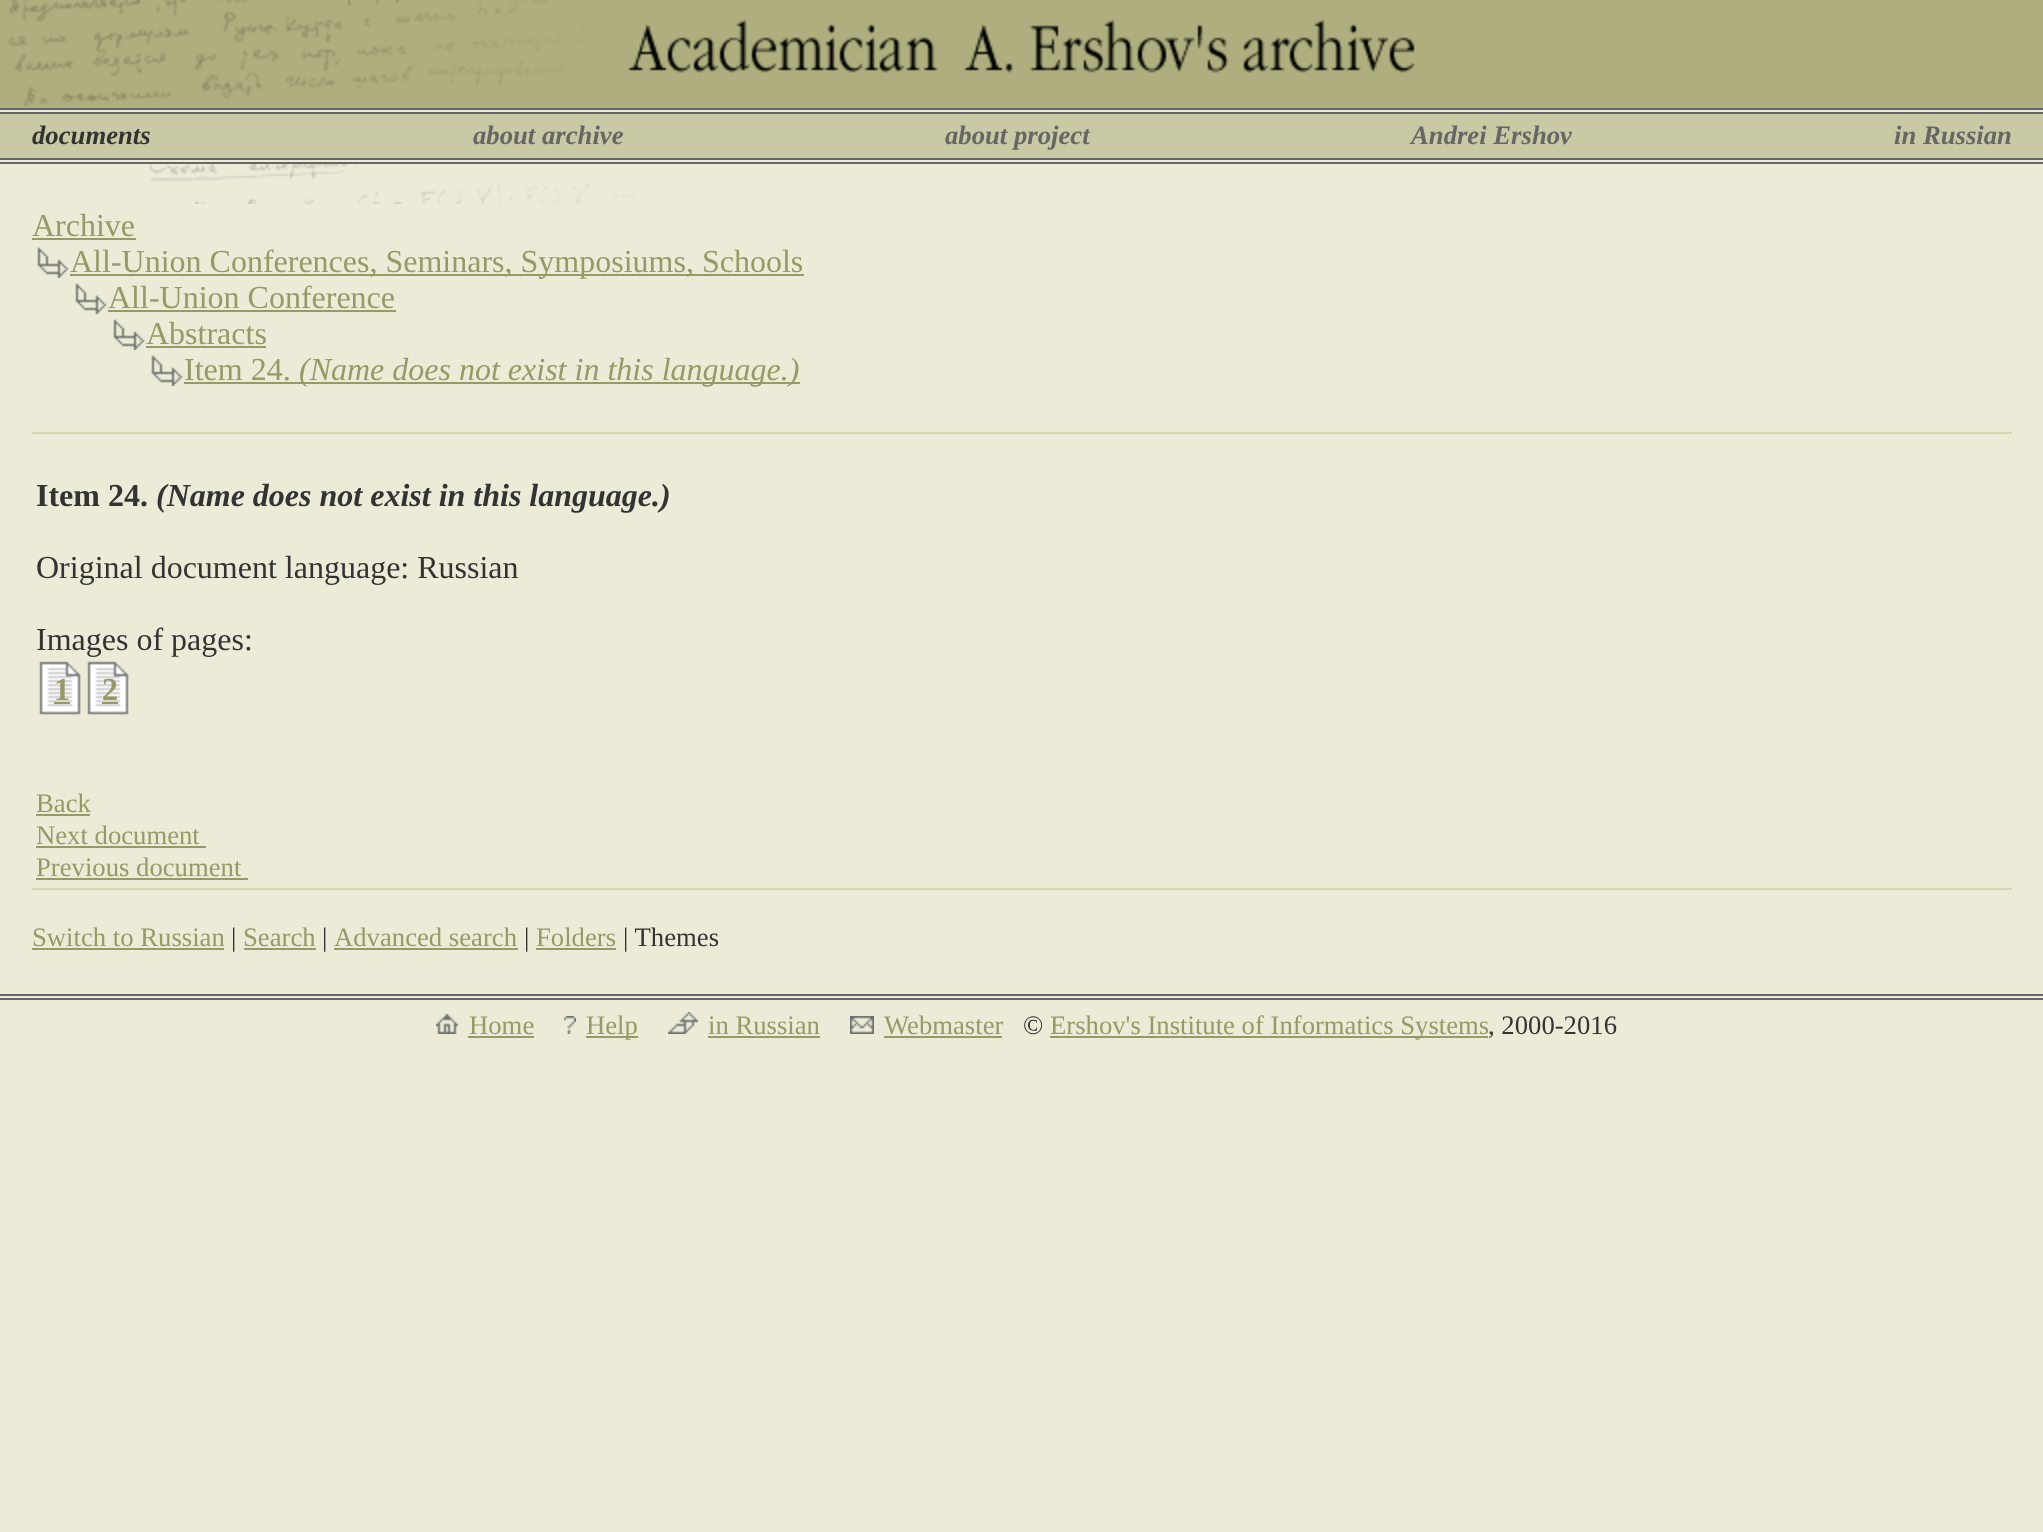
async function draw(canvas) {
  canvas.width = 2043
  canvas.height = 1532
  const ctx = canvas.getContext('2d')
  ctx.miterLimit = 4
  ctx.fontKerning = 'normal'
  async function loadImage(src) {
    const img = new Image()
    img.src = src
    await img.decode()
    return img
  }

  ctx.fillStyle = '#ebebd7'
  ctx.fillRect(0, 0, 2043, 1532)
  ctx.drawImage(await loadImage('image0.png'), 0, 0, 2043, 108)
  ctx.drawImage(await loadImage('image1.png'), 628, 19, 787, 54)
  ctx.fillStyle = '#666'
  ctx.fillRect(0, 108, 2043, 2)
  ctx.fillRect(0, 112, 2043, 2)
  ctx.fillStyle = '#c9c9a3'
  ctx.fillRect(0, 114, 2043, 44)
  ctx.font = 'italic bold 26.7px Liberation Serif'
  ctx.fillStyle = '#333'
  ctx.fillText('documents', 32, 144)
  ctx.fillStyle = '#666'
  ctx.fillText('about archive', 473, 144)
  ctx.fillText('about project', 945, 144)
  ctx.fillText('Andrei Ershov', 1411, 144)
  ctx.fillText('in Russian', 1894, 144)
  ctx.fillRect(0, 158, 2043, 2)
  ctx.fillRect(0, 162, 2043, 2)
  ctx.drawImage(await loadImage('image2.png'), 149, 164, 497, 40)
  ctx.font = '32px Liberation Serif'
  ctx.fillStyle = '#996'
  ctx.fillText('Archive', 32, 236)
  ctx.fillRect(32, 238, 104, 2)
  ctx.drawImage(await loadImage('image3.png'), 37, 247, 32, 31)
  ctx.fillRect(70, 274, 734, 2)
  ctx.fillText('All-Union Conferences, Seminars, Symposiums, Schools', 70, 272)
  ctx.drawImage(await loadImage('image3.png'), 75, 283, 32, 31)
  ctx.fillText('All-Union Conference', 108, 308)
  ctx.fillRect(108, 310, 288, 2)
  ctx.drawImage(await loadImage('image3.png'), 113, 319, 32, 31)
  ctx.fillText('Abstracts', 146, 344)
  ctx.fillRect(146, 346, 120, 2)
  ctx.drawImage(await loadImage('image3.png'), 151, 355, 32, 31)
  ctx.fillText('Item 24.', 184, 380)
  ctx.fillRect(184, 382, 616, 2)
  ctx.font = 'italic 32px Liberation Serif'
  ctx.fillText('(Name does not exist in this language.)', 299, 380)
  ctx.fillStyle = '#d7d7af'
  ctx.fillRect(32, 432, 1980, 2)
  ctx.font = 'bold 32px Liberation Serif'
  ctx.fillStyle = '#333'
  ctx.fillText('Item 24.', 36, 506)
  ctx.font = 'italic bold 32px Liberation Serif'
  ctx.fillText('(Name does not exist in this language.)', 156, 506)
  ctx.font = '32px Liberation Serif'
  ctx.fillText('Original document language: Russian', 36, 578)
  ctx.fillText('Images of pages:', 36, 650)
  ctx.drawImage(await loadImage('image4.png'), 39, 661, 90, 54)
  ctx.font = 'bold 32px Liberation Serif'
  ctx.fillStyle = '#996'
  ctx.fillText('1', 54, 700)
  ctx.fillRect(54, 702, 16, 2)
  ctx.fillText('2', 102, 700)
  ctx.fillRect(102, 702, 16, 2)
  ctx.font = '26.7px Liberation Serif'
  ctx.fillText('Back', 36, 812)
  ctx.fillRect(36, 814, 54, 2)
  ctx.fillText('Next document', 36, 844)
  ctx.fillRect(36, 846, 170, 2)
  ctx.fillText('Previous document', 36, 876)
  ctx.fillRect(36, 878, 212, 2)
  ctx.fillStyle = '#d7d7af'
  ctx.fillRect(32, 888, 1980, 2)
  ctx.fillStyle = '#996'
  ctx.fillText('Switch to Russian', 32, 946)
  ctx.fillRect(32, 948, 192, 2)
  ctx.fillStyle = '#333'
  ctx.fillText('|', 231, 946)
  ctx.fillStyle = '#996'
  ctx.fillText('Search', 243, 946)
  ctx.fillRect(244, 948, 72, 2)
  ctx.fillStyle = '#333'
  ctx.fillText('|', 322, 946)
  ctx.fillStyle = '#996'
  ctx.fillText('Advanced search', 334, 946)
  ctx.fillRect(334, 948, 184, 2)
  ctx.fillStyle = '#333'
  ctx.fillText('|', 524, 946)
  ctx.fillStyle = '#996'
  ctx.fillText('Folders', 536, 946)
  ctx.fillRect(536, 948, 80, 2)
  ctx.fillStyle = '#333'
  ctx.fillText('| Themes', 623, 946)
  ctx.fillStyle = '#666'
  ctx.fillRect(0, 994, 2043, 2)
  ctx.fillRect(0, 998, 2043, 2)
  ctx.drawImage(await loadImage('image5.png'), 436, 1014, 22, 20)
  ctx.fillStyle = '#996'
  ctx.fillText('Home', 469, 1034)
  ctx.fillRect(468, 1036, 66, 2)
  ctx.drawImage(await loadImage('image6.png'), 564, 1016, 12, 18)
  ctx.fillRect(586, 1036, 52, 2)
  ctx.fillText('Help', 586, 1034)
  ctx.drawImage(await loadImage('image7.png'), 668, 1012, 30, 22)
  ctx.fillText('in Russian', 708, 1034)
  ctx.fillRect(708, 1036, 112, 2)
  ctx.drawImage(await loadImage('image8.png'), 850, 1016, 24, 18)
  ctx.fillText('Webmaster', 884, 1034)
  ctx.fillRect(884, 1036, 118, 2)
  ctx.fillStyle = '#333'
  ctx.fillText('©', 1023, 1034)
  ctx.fillStyle = '#996'
  ctx.fillRect(1050, 1036, 438, 2)
  ctx.fillText('Ershov\'s Institute of Informatics Systems', 1050, 1034)
  ctx.fillStyle = '#333'
  ctx.fillText(', 2000-2016', 1488, 1034)
}

draw(document.querySelector('canvas'))
